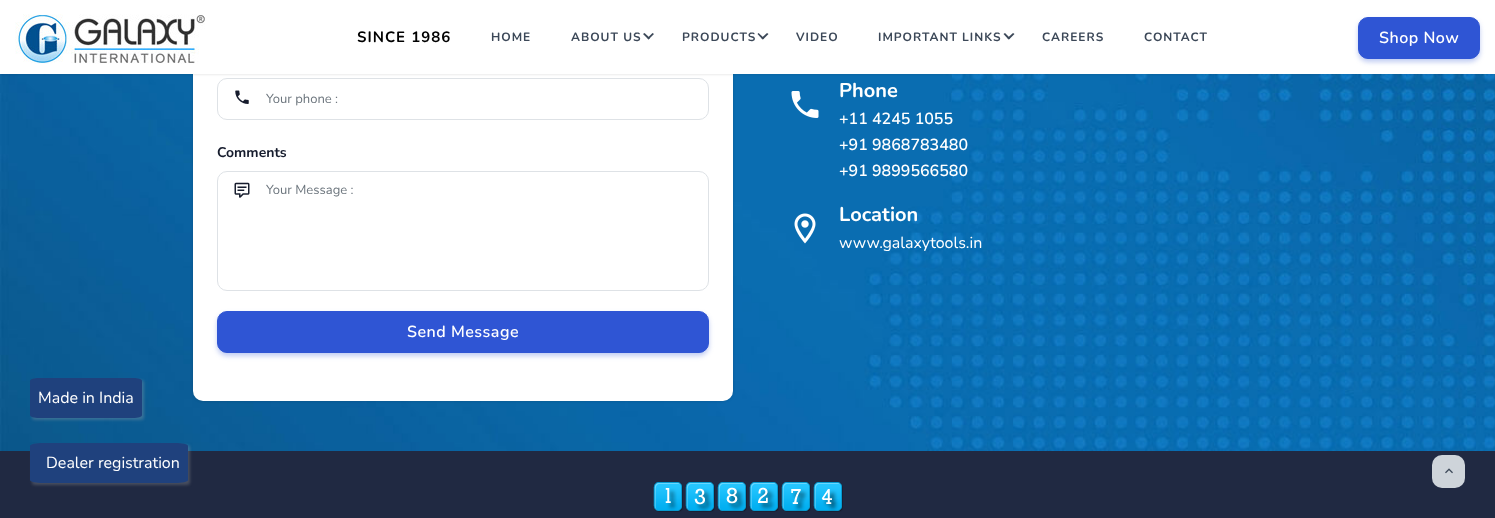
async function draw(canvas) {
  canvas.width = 1495
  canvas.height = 518
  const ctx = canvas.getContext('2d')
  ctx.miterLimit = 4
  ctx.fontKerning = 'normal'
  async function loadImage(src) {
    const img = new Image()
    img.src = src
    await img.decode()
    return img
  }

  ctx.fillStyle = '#fff'
  ctx.fillRect(0, 0, 1495, 518)
  ctx.drawImage(await loadImage('image1.png'), 0, 74, 1495, 377)
  ctx.fillStyle = '#00000026'
  ctx.filter = 'blur(1.5px)'
  ctx.beginPath()
  ctx.roundRect(193, -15, 540, 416, 10)
  ctx.fill()
  ctx.filter = 'none'
  ctx.fillStyle = '#fff'
  ctx.beginPath()
  ctx.roundRect(193, -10, 540, 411, 10)
  ctx.fill()
  ctx.beginPath()
  ctx.roundRect(217.5, 78.5, 491, 41, 9.5)
  ctx.strokeStyle = '#dee2e6'
  ctx.stroke()
  ctx.fillStyle = '#00000026'
  ctx.filter = 'blur(1.5px)'
  ctx.beginPath()
  ctx.rect(0, 0, 1495, 74)
  ctx.fill()
  ctx.filter = 'none'
  ctx.fillStyle = '#fff'
  ctx.fillRect(0, 0, 1495, 74)
  ctx.drawImage(await loadImage('image0.png'), 15, 14, 190, 50)
  ctx.letterSpacing = '1px'
  ctx.font = 'bold 15px Nunito'
  ctx.fillStyle = '#000'
  ctx.fillText('SINCE 1986', 357, 42)
  ctx.font = 'bold 12px Nunito'
  ctx.fillStyle = '#3c4858'
  ctx.fillText('HOME', 491, 41)
  ctx.fillText('ABOUT US', 571, 41)
  ctx.beginPath()
  ctx.moveTo(652.5, 33)
  ctx.lineTo(654, 34)
  ctx.lineTo(648.5, 39.5)
  ctx.lineTo(647.5, 38)
  ctx.closePath()
  ctx.fill()
  ctx.beginPath()
  ctx.moveTo(644.5, 33)
  ctx.lineTo(650, 38)
  ctx.lineTo(648.5, 39.5)
  ctx.lineTo(643, 34)
  ctx.closePath()
  ctx.fill()
  ctx.fillText('PRODUCTS', 682, 41)
  ctx.beginPath()
  ctx.moveTo(767, 33)
  ctx.lineTo(768.5, 34)
  ctx.lineTo(763, 39.5)
  ctx.lineTo(761.5, 38)
  ctx.closePath()
  ctx.fill()
  ctx.beginPath()
  ctx.moveTo(758.5, 33)
  ctx.lineTo(764, 38)
  ctx.lineTo(762.5, 39.5)
  ctx.lineTo(757.5, 34)
  ctx.closePath()
  ctx.fill()
  ctx.fillText('VIDEO', 796, 41)
  ctx.fillText('IMPORTANT LINKS', 878, 41)
  ctx.beginPath()
  ctx.moveTo(1013, 33)
  ctx.lineTo(1014.5, 34)
  ctx.lineTo(1009, 39.5)
  ctx.lineTo(1007.5, 38)
  ctx.closePath()
  ctx.fill()
  ctx.beginPath()
  ctx.moveTo(1005, 33)
  ctx.lineTo(1010, 38)
  ctx.lineTo(1008.5, 39.5)
  ctx.lineTo(1003.5, 34)
  ctx.closePath()
  ctx.fill()
  ctx.fillText('CAREERS', 1042, 41)
  ctx.fillText('CONTACT', 1144, 41)
  ctx.fillStyle = '#2f55d44d'
  ctx.filter = 'blur(2.5px)'
  ctx.beginPath()
  ctx.roundRect(1358, 20, 122, 42, 10)
  ctx.fill()
  ctx.filter = 'none'
  ctx.fillStyle = '#2f55d4'
  ctx.beginPath()
  ctx.roundRect(1358.5, 17.5, 121, 41, 9.5)
  ctx.fill()
  ctx.strokeStyle = '#2f55d4'
  ctx.stroke()
  ctx.letterSpacing = '0.5px'
  ctx.font = '600 16px Nunito'
  ctx.fillStyle = '#fff'
  ctx.fillText('Shop Now', 1379, 43)
  ctx.drawImage(await loadImage('image2.png'), 235, 90, 14, 14)
  ctx.letterSpacing = '0px'
  ctx.font = '13px Nunito'
  ctx.fillStyle = '#6c757d'
  ctx.fillText('Your phone :', 266, 103)
  ctx.font = 'bold 14px Nunito'
  ctx.fillStyle = '#161c2d'
  ctx.fillText('Comments', 217, 157)
  ctx.beginPath()
  ctx.roundRect(217.5, 171.5, 491, 119, 9.5)
  ctx.strokeStyle = '#dee2e6'
  ctx.stroke()
  ctx.drawImage(await loadImage('image3.png'), 234, 182, 16, 16)
  ctx.font = '13px Nunito'
  ctx.fillStyle = '#6c757d'
  ctx.fillText('Your Message :', 266, 194)
  ctx.fillStyle = '#2f55d44d'
  ctx.filter = 'blur(2.5px)'
  ctx.beginPath()
  ctx.roundRect(217, 314, 492, 42, 10)
  ctx.fill()
  ctx.filter = 'none'
  ctx.fillStyle = '#2f55d4'
  ctx.beginPath()
  ctx.roundRect(217.5, 311.5, 491, 41, 9.5)
  ctx.fill()
  ctx.strokeStyle = '#2f55d4'
  ctx.stroke()
  ctx.letterSpacing = '0.5px'
  ctx.font = '600 16px Nunito'
  ctx.fillStyle = '#fff'
  ctx.fillText('Send Message', 407, 337)
  ctx.drawImage(await loadImage('image4.png'), 791, 91, 28, 27)
  ctx.letterSpacing = '0px'
  ctx.font = 'bold 20px Nunito'
  ctx.fillText('Phone', 839, 97)
  ctx.font = '600 16px Nunito'
  ctx.fillText('+11 4245 1055', 839, 124)
  ctx.fillText('+91 9868783480', 839, 150)
  ctx.fillText('+91 9899566580', 839, 176)
  ctx.drawImage(await loadImage('image5.png'), 794, 213, 22, 31)
  ctx.font = 'bold 20px Nunito'
  ctx.fillText('Location', 839, 221)
  ctx.font = '16px Nunito'
  ctx.fillText('www.galaxytools.in', 839, 248)
  ctx.fillStyle = '#a6a6a64d'
  ctx.filter = 'blur(1.5px)'
  ctx.beginPath()
  ctx.roundRect(32, 380, 112, 40, 3)
  ctx.fill()
  ctx.filter = 'none'
  ctx.fillStyle = '#1f417d'
  ctx.beginPath()
  ctx.moveTo(39, 378)
  ctx.lineTo(133, 378)
  ctx.bezierCurveTo(138, 378, 142, 379, 142, 381)
  ctx.lineTo(142, 415)
  ctx.bezierCurveTo(142, 417, 138, 418, 133, 418)
  ctx.lineTo(39, 418)
  ctx.bezierCurveTo(34, 418, 30, 417, 30, 415)
  ctx.lineTo(30, 381)
  ctx.bezierCurveTo(30, 379, 34, 378, 39, 378)
  ctx.closePath()
  ctx.fill()
  ctx.fillStyle = '#fff'
  ctx.fillText('Made in India', 38, 403)
  ctx.fillStyle = '#202942'
  ctx.fillRect(0, 451, 1495, 67)
  ctx.drawImage(await loadImage('image6.png'), 653, 482, 190, 30)
  ctx.fillStyle = '#a6a6a64d'
  ctx.filter = 'blur(1.5px)'
  ctx.beginPath()
  ctx.roundRect(32, 445, 158, 40, 3)
  ctx.fill()
  ctx.filter = 'none'
  ctx.fillStyle = '#1f417d'
  ctx.beginPath()
  ctx.moveTo(43, 443)
  ctx.lineTo(175, 443)
  ctx.bezierCurveTo(182, 443, 188, 444, 188, 446)
  ctx.lineTo(188, 480)
  ctx.bezierCurveTo(188, 482, 182, 483, 175, 483)
  ctx.lineTo(43, 483)
  ctx.bezierCurveTo(36, 483, 30, 482, 30, 480)
  ctx.lineTo(30, 446)
  ctx.bezierCurveTo(30, 444, 36, 443, 43, 443)
  ctx.closePath()
  ctx.fill()
  ctx.fillStyle = '#fff'
  ctx.fillText('Dealer registration', 46, 468)
  ctx.fillStyle = '#ced4da'
  ctx.beginPath()
  ctx.roundRect(1432, 455, 33, 33, 10)
  ctx.fill()
  ctx.drawImage(await loadImage('image7.png'), 1445, 468, 8, 6)
}

draw(document.querySelector('canvas'))
